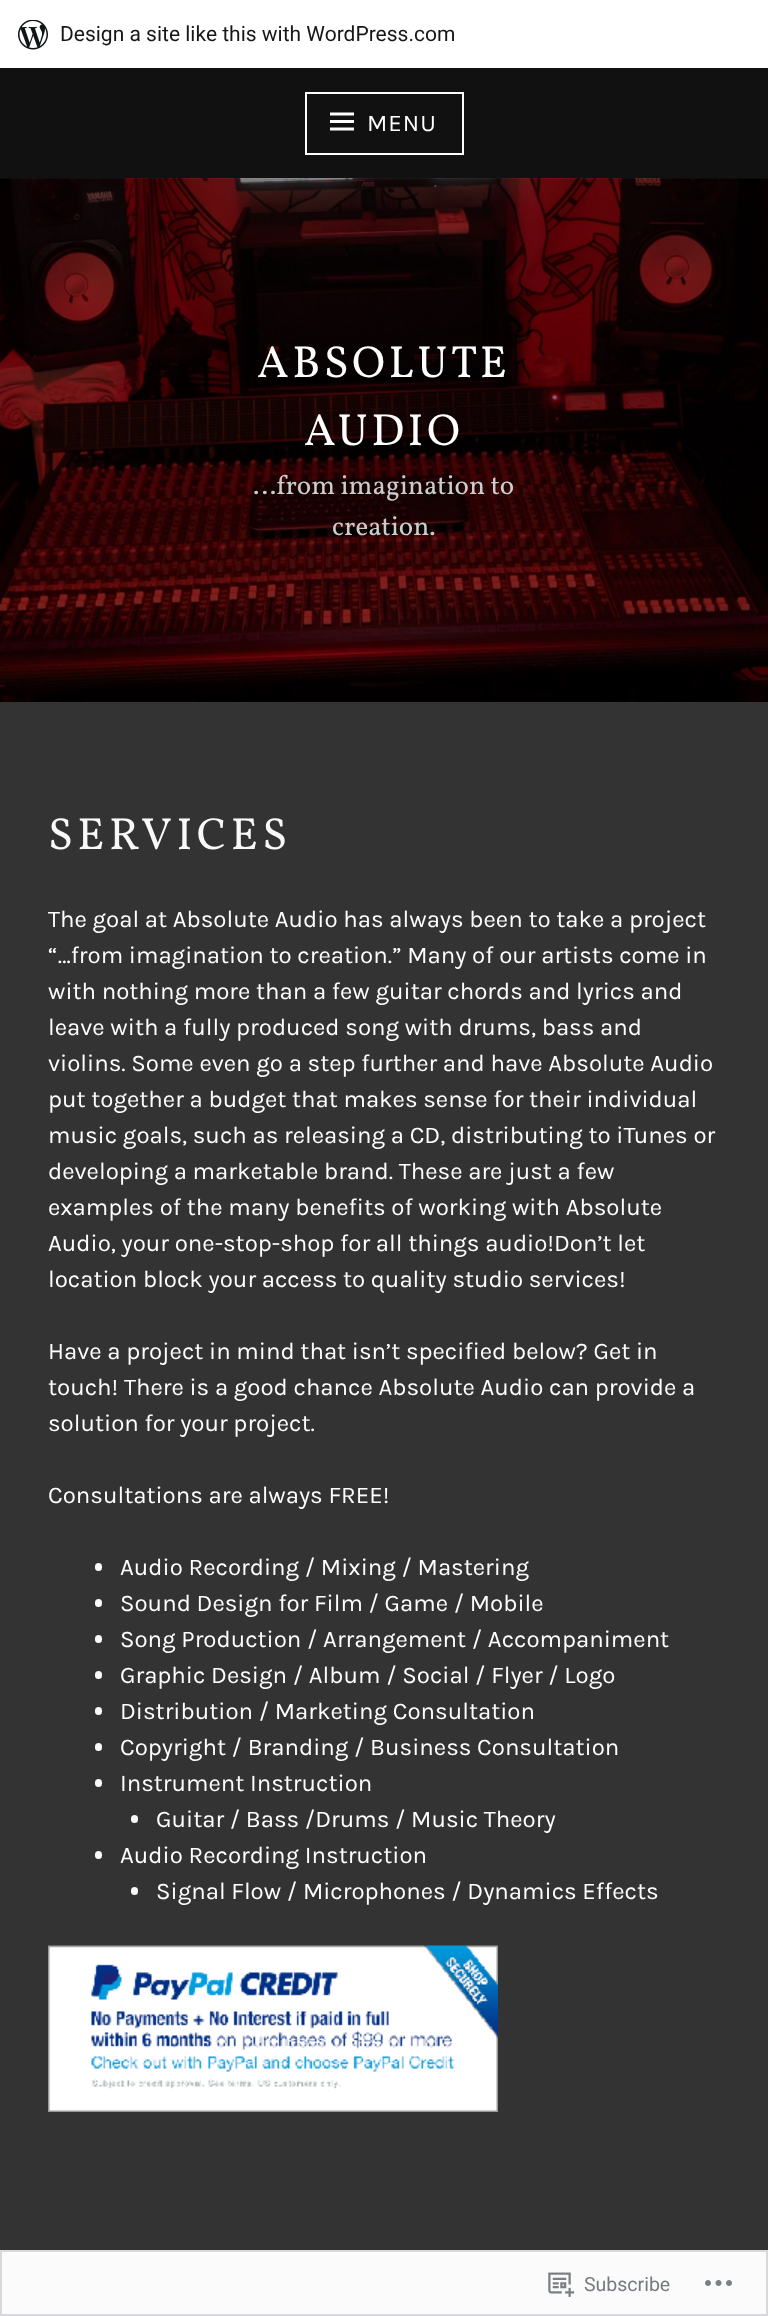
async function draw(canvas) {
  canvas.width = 768
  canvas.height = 2316
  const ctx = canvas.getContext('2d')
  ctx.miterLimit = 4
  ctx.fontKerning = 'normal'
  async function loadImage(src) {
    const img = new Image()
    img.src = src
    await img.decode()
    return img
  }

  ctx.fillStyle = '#333'
  ctx.fillRect(0, 0, 768, 2316)
  ctx.fillStyle = '#fff'
  ctx.fillRect(0, 0, 768, 68)
  ctx.drawImage(await loadImage('image0.png'), 18, 20, 30, 30)
  ctx.font = '21px Roboto'
  ctx.fillStyle = '#171717'
  ctx.fillText('Design a site like this with WordPress.com', 60, 41)
  ctx.fillStyle = '#111'
  ctx.fillRect(0, 68, 768, 111)
  ctx.strokeStyle = '#fff'
  ctx.lineWidth = 2
  ctx.strokeRect(306, 93, 157, 61)
  ctx.drawImage(await loadImage('image1.png'), 330, 112, 24, 19)
  ctx.letterSpacing = '1px'
  ctx.font = '24px Karla'
  ctx.fillStyle = '#fff'
  ctx.fillText('MENU', 367, 131)
  ctx.drawImage(await loadImage('image2.png'), 0, 178, 768, 524)
  ctx.letterSpacing = '3.5px'
  ctx.font = '45px Vollkorn'
  ctx.fillText('ABSOLUTE', 257, 377)
  ctx.fillText('AUDIO', 304, 445)
  ctx.letterSpacing = '0px'
  ctx.font = '27px Vollkorn'
  ctx.fillStyle = '#ccc'
  ctx.fillText('…from imagination to', 253, 494)
  ctx.fillText('creation.', 332, 535)
  ctx.letterSpacing = '4.5px'
  ctx.font = '45px Vollkorn'
  ctx.fillStyle = '#f9f9f9'
  ctx.fillText('SERVICES', 48, 849)
  ctx.letterSpacing = '0px'
  ctx.font = '24px Karla'
  ctx.fillStyle = '#fff'
  ctx.fillText('The goal at Absolute Audio has always been to take a project', 48, 927)
  ctx.fillText('“…from imagination to creation.” Many of our artists come in', 48, 963)
  ctx.fillText('with nothing more than a few guitar chords and lyrics and', 48, 999)
  ctx.fillText('leave with a fully produced song with drums, bass and', 48, 1035)
  ctx.fillText('violins. Some even go a step further and have Absolute Audio', 48, 1071)
  ctx.fillText('put together a budget that makes sense for their individual', 48, 1107)
  ctx.fillText('music goals, such as releasing a CD, distributing to iTunes or', 48, 1143)
  ctx.fillText('developing a marketable brand. These are just a few', 48, 1179)
  ctx.fillText('examples of the many benefits of working with Absolute', 48, 1215)
  ctx.fillText('Audio, your one-stop-shop for all things audio!Don’t let', 48, 1251)
  ctx.fillText('location block your access to quality studio services!', 48, 1287)
  ctx.fillText('Have a project in mind that isn’t specified below? Get in', 48, 1359)
  ctx.fillText('touch! There is a good chance Absolute Audio can provide a', 48, 1395)
  ctx.fillText('solution for your project.', 48, 1431)
  ctx.fillText('Consultations are always FREE!', 48, 1503)
  ctx.fillStyle = '#f9f9f9'
  ctx.beginPath()
  ctx.roundRect(95, 1563, 7, 8, 3.5)
  ctx.fill()
  ctx.fillStyle = '#fff'
  ctx.fillText('Audio Recording / Mixing / Mastering', 120, 1575)
  ctx.fillStyle = '#f9f9f9'
  ctx.beginPath()
  ctx.roundRect(95, 1599, 7, 8, 3.5)
  ctx.fill()
  ctx.fillStyle = '#fff'
  ctx.fillText('Sound Design for Film / Game / Mobile', 120, 1611)
  ctx.fillStyle = '#f9f9f9'
  ctx.beginPath()
  ctx.roundRect(95, 1635, 7, 8, 3.5)
  ctx.fill()
  ctx.fillStyle = '#fff'
  ctx.fillText('Song Production / Arrangement / Accompaniment', 120, 1647)
  ctx.fillStyle = '#f9f9f9'
  ctx.beginPath()
  ctx.roundRect(95, 1671, 7, 8, 3.5)
  ctx.fill()
  ctx.fillStyle = '#fff'
  ctx.fillText('Graphic Design / Album / Social / Flyer / Logo', 120, 1683)
  ctx.fillStyle = '#f9f9f9'
  ctx.beginPath()
  ctx.roundRect(95, 1707, 7, 8, 3.5)
  ctx.fill()
  ctx.fillStyle = '#fff'
  ctx.fillText('Distribution / Marketing Consultation', 120, 1719)
  ctx.fillStyle = '#f9f9f9'
  ctx.beginPath()
  ctx.roundRect(95, 1743, 7, 8, 3.5)
  ctx.fill()
  ctx.fillStyle = '#fff'
  ctx.fillText('Copyright / Branding / Business Consultation', 120, 1755)
  ctx.fillStyle = '#f9f9f9'
  ctx.beginPath()
  ctx.roundRect(95, 1779, 7, 8, 3.5)
  ctx.fill()
  ctx.fillStyle = '#fff'
  ctx.fillText('Instrument Instruction', 120, 1791)
  ctx.fillStyle = '#f9f9f9'
  ctx.beginPath()
  ctx.roundRect(131, 1815, 7, 8, 3.5)
  ctx.fill()
  ctx.fillStyle = '#fff'
  ctx.fillText('Guitar / Bass /Drums / Music Theory', 156, 1827)
  ctx.fillStyle = '#f9f9f9'
  ctx.beginPath()
  ctx.roundRect(95, 1851, 7, 8, 3.5)
  ctx.fill()
  ctx.fillStyle = '#fff'
  ctx.fillText('Audio Recording Instruction', 120, 1863)
  ctx.fillStyle = '#f9f9f9'
  ctx.beginPath()
  ctx.roundRect(131, 1887, 7, 8, 3.5)
  ctx.fill()
  ctx.fillStyle = '#fff'
  ctx.fillText('Signal Flow / Microphones / Dynamics Effects', 156, 1899)
  ctx.drawImage(await loadImage('image3.png'), 48, 1945, 450, 167)
  ctx.fillStyle = '#fbfbfb'
  ctx.beginPath()
  ctx.rect(1, 2251, 766, 64)
  ctx.fill()
  ctx.strokeStyle = '#d9d9db'
  ctx.stroke()
  ctx.drawImage(await loadImage('image4.png'), 548, 2272, 27, 25)
  ctx.font = '19.5px Roboto'
  ctx.fillStyle = '#777b80'
  ctx.fillText('Subscribe', 584, 2291)
  ctx.drawImage(await loadImage('image5.png'), 705, 2280, 27, 6)
}

draw(document.querySelector('canvas'))
